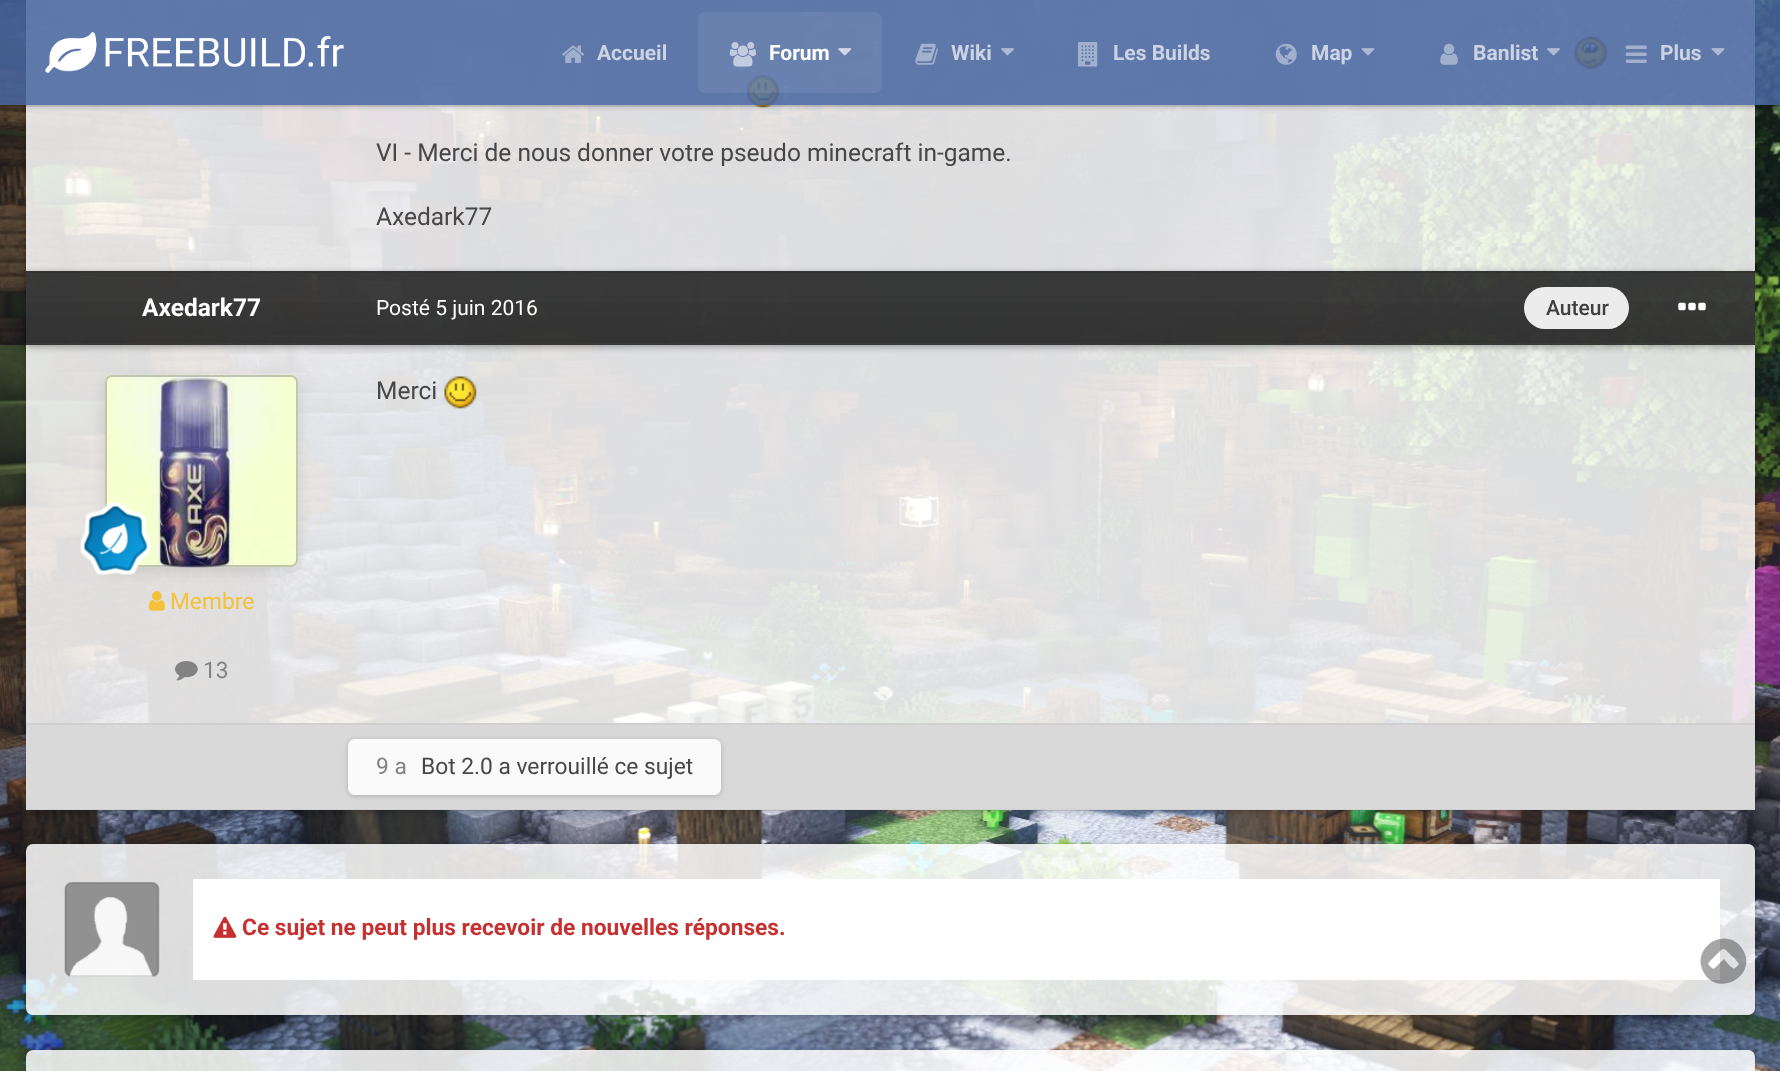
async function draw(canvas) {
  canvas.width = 1780
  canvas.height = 1071
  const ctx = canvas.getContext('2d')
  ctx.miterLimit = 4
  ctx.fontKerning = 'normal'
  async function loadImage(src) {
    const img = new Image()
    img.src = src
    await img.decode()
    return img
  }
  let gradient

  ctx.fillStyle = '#fff'
  ctx.fillRect(0, 0, 1780, 1071)
  ctx.drawImage(await loadImage('image0.png'), 0, 0, 1780, 1071)
  ctx.save()
  ctx.beginPath()
  ctx.moveTo(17, 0)
  ctx.lineTo(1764, 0)
  ctx.lineTo(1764, 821)
  ctx.lineTo(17, 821)
  ctx.closePath()
  ctx.moveTo(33, -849)
  ctx.lineTo(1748, -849)
  ctx.bezierCurveTo(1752, -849, 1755, -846, 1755, -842)
  ctx.lineTo(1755, 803)
  ctx.bezierCurveTo(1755, 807, 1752, 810, 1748, 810)
  ctx.lineTo(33, 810)
  ctx.bezierCurveTo(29, 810, 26, 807, 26, 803)
  ctx.lineTo(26, -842)
  ctx.bezierCurveTo(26, -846, 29, -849, 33, -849)
  ctx.closePath()
  ctx.clip('evenodd')
  ctx.fillStyle = '#00000033'
  ctx.filter = 'blur(2.5px)'
  ctx.beginPath()
  ctx.roundRect(26, -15, 1729, 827, 7)
  ctx.fill()
  ctx.filter = 'none'
  ctx.restore()
  ctx.fillStyle = '#ffffffd9'
  ctx.fillRect(26, 0, 1729, 723)
  ctx.drawImage(await loadImage('image15.png'), 746, 74, 34, 34)
  ctx.fillStyle = '#0000001a'
  ctx.beginPath()
  ctx.moveTo(0, 105)
  ctx.lineTo(0, 107)
  ctx.lineTo(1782, 107)
  ctx.lineTo(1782, 2)
  ctx.lineTo(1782, 105)
  ctx.closePath()
  ctx.fill()
  ctx.drawImage(await loadImage('image14.png'), 1574, 36, 34, 34)
  ctx.save()
  ctx.beginPath()
  ctx.rect(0, 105, 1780, 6)
  ctx.clip()
  ctx.fillStyle = '#00000026'
  ctx.filter = 'blur(3.5px)'
  ctx.beginPath()
  ctx.rect(0, 2, 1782, 105)
  ctx.fill()
  ctx.filter = 'none'
  ctx.restore()
  ctx.fillStyle = '#4765a0d9'
  ctx.fillRect(0, 0, 1780, 105)
  ctx.drawImage(await loadImage('image1.png'), 45, 31, 299, 43)
  ctx.drawImage(await loadImage('image2.png'), 562, 45, 22, 18)
  ctx.font = 'bold 21px Roboto'
  ctx.fillStyle = '#ccd4e3'
  ctx.fillText('Accueil', 597, 60)
  ctx.fillStyle = '#ffffff14'
  ctx.beginPath()
  ctx.roundRect(698, 12, 184, 81, 7)
  ctx.fill()
  ctx.drawImage(await loadImage('image3.png'), 729, 42, 27, 25)
  ctx.fillStyle = '#fff'
  ctx.fillText('Forum', 769, 60)
  ctx.drawImage(await loadImage('image4.png'), 838, 48, 14, 8)
  ctx.drawImage(await loadImage('image5.png'), 915, 43, 23, 22)
  ctx.fillStyle = '#ccd4e3'
  ctx.fillText('Wiki', 951, 60)
  ctx.drawImage(await loadImage('image6.png'), 1001, 48, 13, 8)
  ctx.drawImage(await loadImage('image7.png'), 1078, 42, 20, 25)
  ctx.fillText('Les Builds', 1113, 60)
  ctx.drawImage(await loadImage('image8.png'), 1275, 43, 22, 22)
  ctx.fillText('Map', 1311, 60)
  ctx.drawImage(await loadImage('image9.png'), 1361, 48, 14, 8)
  ctx.drawImage(await loadImage('image10.png'), 1440, 43, 18, 22)
  ctx.fillText('Banlist', 1473, 60)
  ctx.drawImage(await loadImage('image11.png'), 1547, 48, 13, 8)
  ctx.drawImage(await loadImage('image12.png'), 1625, 45, 22, 18)
  ctx.fillText('Plus', 1660, 60)
  ctx.drawImage(await loadImage('image13.png'), 1711, 48, 14, 8)
  ctx.font = '24.5px Roboto'
  ctx.fillStyle = '#474747'
  ctx.fillText('VI - Merci de nous donner votre pseudo minecraft in-game.', 376, 161)
  ctx.fillText('Axedark77', 376, 225)
  ctx.save()
  ctx.beginPath()
  ctx.moveTo(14, 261)
  ctx.lineTo(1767, 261)
  ctx.lineTo(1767, 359)
  ctx.lineTo(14, 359)
  ctx.closePath()
  ctx.moveTo(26, 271)
  ctx.lineTo(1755, 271)
  ctx.lineTo(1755, 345)
  ctx.lineTo(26, 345)
  ctx.closePath()
  ctx.clip('evenodd')
  ctx.fillStyle = '#0000004d'
  ctx.filter = 'blur(3.5px)'
  ctx.beginPath()
  ctx.rect(26, 273, 1729, 74)
  ctx.fill()
  ctx.filter = 'none'
  ctx.restore()
  ctx.fillStyle = '#000000bf'
  ctx.fillRect(26, 271, 1729, 74)
  gradient = ctx.createLinearGradient(891, 203, 891, 273)
  gradient.addColorStop(0, '#00000000')
  gradient.addColorStop(1, '#0000001a')
  ctx.fillStyle = gradient
  ctx.fillRect(26, 271, 1729, 2)
  gradient = ctx.createLinearGradient(891, 273, 891, 343)
  gradient.addColorStop(0, '#00000000')
  gradient.addColorStop(1, '#0000001a')
  ctx.fillStyle = gradient
  ctx.fillRect(26, 302, 1729, 41)
  ctx.font = 'bold 24.5px Roboto'
  ctx.fillStyle = '#fff'
  ctx.fillText('Axedark77', 142, 316)
  ctx.beginPath()
  ctx.roundRect(105, 375, 193, 192, 7)
  ctx.fill()
  ctx.drawImage(await loadImage('image16.png'), 105, 374, 193, 194)
  ctx.drawImage(await loadImage('image18.png'), 148, 591, 17, 20)
  ctx.save()
  ctx.beginPath()
  ctx.moveTo(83, 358)
  ctx.lineTo(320, 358)
  ctx.lineTo(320, 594)
  ctx.lineTo(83, 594)
  ctx.closePath()
  ctx.moveTo(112, 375)
  ctx.lineTo(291, 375)
  ctx.bezierCurveTo(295, 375, 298, 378, 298, 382)
  ctx.lineTo(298, 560)
  ctx.bezierCurveTo(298, 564, 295, 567, 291, 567)
  ctx.lineTo(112, 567)
  ctx.bezierCurveTo(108, 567, 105, 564, 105, 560)
  ctx.lineTo(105, 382)
  ctx.bezierCurveTo(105, 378, 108, 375, 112, 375)
  ctx.closePath()
  ctx.clip('evenodd')
  ctx.fillStyle = '#0000001a'
  ctx.filter = 'blur(7px)'
  ctx.beginPath()
  ctx.roundRect(105, 380, 193, 192, 7)
  ctx.fill()
  ctx.filter = 'none'
  ctx.restore()
  ctx.beginPath()
  ctx.roundRect(106, 376, 191, 190, 6)
  ctx.strokeStyle = '#4747474d'
  ctx.lineWidth = 2
  ctx.stroke()
  ctx.drawImage(await loadImage('image17.png'), 80, 502, 72, 73)
  ctx.font = '22.75px Roboto'
  ctx.fillStyle = '#f3c13a'
  ctx.fillText('Membre', 170, 609)
  ctx.drawImage(await loadImage('image19.png'), 175, 661, 23, 20)
  ctx.fillStyle = '#828282'
  ctx.fillText('13', 203, 678)
  ctx.font = '21px Roboto'
  ctx.fillStyle = '#fff'
  ctx.fillText('Posté 5 juin 2016', 376, 315)
  ctx.fillStyle = '#404040'
  ctx.beginPath()
  ctx.roundRect(1524, 287, 105, 42, 21)
  ctx.fill()
  ctx.fillStyle = '#ffffffe6'
  ctx.beginPath()
  ctx.roundRect(1524, 287, 105, 42, 21)
  ctx.fill()
  ctx.font = '500 21px Roboto'
  ctx.fillStyle = '#404040'
  ctx.fillText('Auteur', 1546, 315)
  ctx.drawImage(await loadImage('image20.png'), 1678, 302, 28, 9)
  ctx.font = '24.5px Roboto'
  ctx.fillStyle = '#474747'
  ctx.fillText('Merci', 376, 399)
  ctx.drawImage(await loadImage('image21.png'), 444, 376, 33, 33)
  ctx.fillStyle = '#d9d9d9'
  ctx.fillRect(26, 725, 1729, 85)
  ctx.fillStyle = '#d0d0d0'
  ctx.fillRect(26, 723, 1729, 2)
  ctx.fillStyle = '#4747470f'
  ctx.fillRect(26, 809, 1729, 2)
  ctx.save()
  ctx.beginPath()
  ctx.moveTo(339, 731)
  ctx.lineTo(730, 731)
  ctx.lineTo(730, 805)
  ctx.lineTo(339, 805)
  ctx.closePath()
  ctx.moveTo(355, 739)
  ctx.lineTo(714, 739)
  ctx.bezierCurveTo(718, 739, 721, 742, 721, 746)
  ctx.lineTo(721, 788)
  ctx.bezierCurveTo(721, 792, 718, 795, 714, 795)
  ctx.lineTo(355, 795)
  ctx.bezierCurveTo(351, 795, 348, 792, 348, 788)
  ctx.lineTo(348, 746)
  ctx.bezierCurveTo(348, 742, 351, 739, 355, 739)
  ctx.closePath()
  ctx.clip('evenodd')
  ctx.fillStyle = '#00000033'
  ctx.filter = 'blur(2.5px)'
  ctx.beginPath()
  ctx.roundRect(348, 740, 373, 56, 7)
  ctx.fill()
  ctx.filter = 'none'
  ctx.restore()
  ctx.fillStyle = '#ffffffd9'
  ctx.beginPath()
  ctx.roundRect(348, 739, 373, 56, 7)
  ctx.fill()
  ctx.font = '22.75px Roboto'
  ctx.fillStyle = '#828282'
  ctx.fillText('9 a', 376, 774)
  ctx.fillStyle = '#474747'
  ctx.fillText('Bot 2.0 a verrouillé ce sujet', 421, 774)
  ctx.save()
  ctx.beginPath()
  ctx.moveTo(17, 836)
  ctx.lineTo(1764, 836)
  ctx.lineTo(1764, 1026)
  ctx.lineTo(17, 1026)
  ctx.closePath()
  ctx.moveTo(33, 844)
  ctx.lineTo(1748, 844)
  ctx.bezierCurveTo(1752, 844, 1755, 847, 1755, 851)
  ctx.lineTo(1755, 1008)
  ctx.bezierCurveTo(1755, 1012, 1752, 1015, 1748, 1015)
  ctx.lineTo(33, 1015)
  ctx.bezierCurveTo(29, 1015, 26, 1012, 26, 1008)
  ctx.lineTo(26, 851)
  ctx.bezierCurveTo(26, 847, 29, 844, 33, 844)
  ctx.closePath()
  ctx.clip('evenodd')
  ctx.fillStyle = '#00000033'
  ctx.filter = 'blur(2.5px)'
  ctx.beginPath()
  ctx.roundRect(26, 845, 1729, 172, 7)
  ctx.fill()
  ctx.filter = 'none'
  ctx.restore()
  ctx.fillStyle = '#ffffffd9'
  ctx.beginPath()
  ctx.roundRect(26, 844, 1729, 171, 7)
  ctx.fill()
  ctx.fillStyle = '#ffffff80'
  ctx.beginPath()
  ctx.roundRect(65, 882, 94, 95, 7)
  ctx.fill()
  ctx.drawImage(await loadImage('image22.png'), 64, 882, 96, 95)
  ctx.beginPath()
  ctx.roundRect(66, 883, 92, 93, 6)
  ctx.strokeStyle = '#47474726'
  ctx.stroke()
  ctx.fillStyle = '#fff'
  ctx.fillRect(193, 879, 1527, 101)
  ctx.drawImage(await loadImage('image23.png'), 213, 916, 24, 22)
  ctx.font = 'bold 22.75px Roboto'
  ctx.fillStyle = '#c53030'
  ctx.fillText('Ce sujet ne peut plus recevoir de nouvelles réponses.', 242, 935)
  ctx.save()
  ctx.beginPath()
  ctx.moveTo(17, 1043)
  ctx.lineTo(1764, 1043)
  ctx.lineTo(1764, 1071)
  ctx.lineTo(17, 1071)
  ctx.closePath()
  ctx.moveTo(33, 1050)
  ctx.lineTo(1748, 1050)
  ctx.bezierCurveTo(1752, 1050, 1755, 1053, 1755, 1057)
  ctx.lineTo(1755, 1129)
  ctx.bezierCurveTo(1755, 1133, 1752, 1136, 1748, 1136)
  ctx.lineTo(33, 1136)
  ctx.bezierCurveTo(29, 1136, 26, 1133, 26, 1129)
  ctx.lineTo(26, 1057)
  ctx.bezierCurveTo(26, 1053, 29, 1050, 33, 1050)
  ctx.closePath()
  ctx.clip('evenodd')
  ctx.fillStyle = '#00000033'
  ctx.filter = 'blur(2.5px)'
  ctx.beginPath()
  ctx.roundRect(26, 1052, 1729, 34, 7)
  ctx.fill()
  ctx.filter = 'none'
  ctx.restore()
  ctx.fillStyle = '#ffffffd9'
  ctx.beginPath()
  ctx.roundRect(26, 1050, 1729, 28, 7)
  ctx.fill()
  ctx.fillStyle = '#24242466'
  ctx.beginPath()
  ctx.moveTo(1735, 968)
  ctx.bezierCurveTo(1741, 963, 1739, 964, 1734, 958)
  ctx.bezierCurveTo(1721, 946, 1726, 946, 1713, 958)
  ctx.bezierCurveTo(1710, 962, 1706, 963, 1710, 966)
  ctx.bezierCurveTo(1713, 969, 1713, 970, 1716, 967)
  ctx.lineTo(1724, 959)
  ctx.lineTo(1729, 965)
  ctx.bezierCurveTo(1731, 966, 1733, 970, 1735, 968)
  ctx.closePath()
  ctx.moveTo(1743, 950)
  ctx.bezierCurveTo(1758, 975, 1719, 998, 1704, 973)
  ctx.bezierCurveTo(1689, 947, 1728, 924, 1743, 950)
  ctx.closePath()
  ctx.fill()
}

draw(document.querySelector('canvas'))
